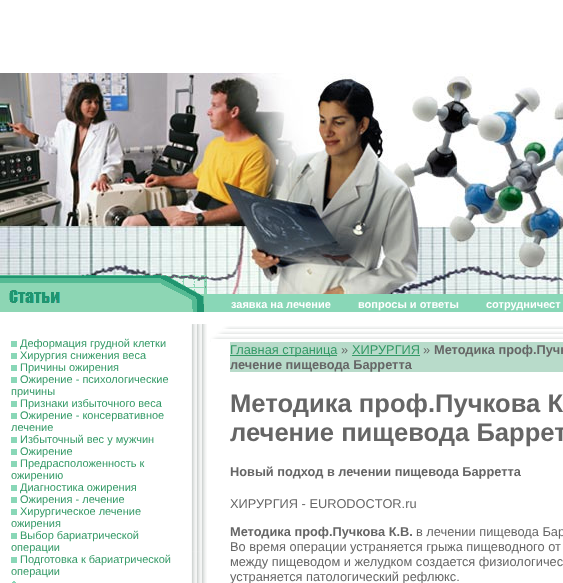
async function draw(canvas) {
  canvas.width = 563
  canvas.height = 583
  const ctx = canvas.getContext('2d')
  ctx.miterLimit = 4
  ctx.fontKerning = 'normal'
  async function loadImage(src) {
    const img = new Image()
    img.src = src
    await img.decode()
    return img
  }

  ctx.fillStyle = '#fff'
  ctx.fillRect(0, 0, 563, 583)
  ctx.drawImage(await loadImage('image0.png'), 0, 73, 276, 202)
  ctx.drawImage(await loadImage('image1.png'), 276, 73, 181, 202)
  ctx.drawImage(await loadImage('image2.png'), 457, 73, 106, 202)
  ctx.drawImage(await loadImage('image3.png'), 0, 275, 207, 37)
  ctx.drawImage(await loadImage('image4.png'), 207, 275, 356, 19)
  ctx.fillStyle = '#89d7b7'
  ctx.fillRect(207, 294, 356, 18)
  ctx.font = 'bold 11px Liberation Sans'
  ctx.fillStyle = '#fff'
  ctx.fillText('заявка на лечение', 231, 308)
  ctx.fillText('вопросы и ответы', 358, 308)
  ctx.fillText('cотрудничест', 486, 308)
  ctx.fillStyle = '#89d7b7'
  ctx.fillRect(11, 341, 6, 6)
  ctx.font = '11px Liberation Sans'
  ctx.fillStyle = '#396'
  ctx.fillText('Деформация грудной клетки', 20, 347)
  ctx.fillStyle = '#89d7b7'
  ctx.fillRect(11, 353, 6, 6)
  ctx.fillStyle = '#396'
  ctx.fillText('Хирургия снижения веса', 20, 359)
  ctx.fillStyle = '#89d7b7'
  ctx.fillRect(11, 365, 6, 6)
  ctx.fillStyle = '#396'
  ctx.fillText('Причины ожирения', 20, 371)
  ctx.fillStyle = '#89d7b7'
  ctx.fillRect(11, 377, 6, 6)
  ctx.fillStyle = '#396'
  ctx.fillText('Ожирение - психологические', 20, 383)
  ctx.fillText('причины', 11, 395)
  ctx.fillStyle = '#89d7b7'
  ctx.fillRect(11, 401, 6, 6)
  ctx.fillStyle = '#396'
  ctx.fillText('Признаки избыточного веса', 20, 407)
  ctx.fillStyle = '#89d7b7'
  ctx.fillRect(11, 413, 6, 6)
  ctx.fillStyle = '#396'
  ctx.fillText('Ожирение - консервативное', 20, 419)
  ctx.fillText('лечение', 11, 431)
  ctx.fillStyle = '#89d7b7'
  ctx.fillRect(11, 437, 6, 6)
  ctx.fillStyle = '#396'
  ctx.fillText('Избыточный вес у мужчин', 20, 443)
  ctx.fillStyle = '#89d7b7'
  ctx.fillRect(11, 449, 6, 6)
  ctx.fillStyle = '#396'
  ctx.fillText('Ожирение', 20, 455)
  ctx.fillStyle = '#89d7b7'
  ctx.fillRect(11, 461, 6, 6)
  ctx.fillStyle = '#396'
  ctx.fillText('Предрасположенность к', 20, 467)
  ctx.fillText('ожирению', 11, 479)
  ctx.fillStyle = '#89d7b7'
  ctx.fillRect(11, 485, 6, 6)
  ctx.fillStyle = '#396'
  ctx.fillText('Диагностика ожирения', 20, 491)
  ctx.fillStyle = '#89d7b7'
  ctx.fillRect(11, 497, 6, 6)
  ctx.fillStyle = '#396'
  ctx.fillText('Ожирения - лечение', 20, 503)
  ctx.fillStyle = '#89d7b7'
  ctx.fillRect(11, 509, 6, 6)
  ctx.fillStyle = '#396'
  ctx.fillText('Хирургическое лечение', 20, 515)
  ctx.fillText('ожирения', 11, 527)
  ctx.fillStyle = '#89d7b7'
  ctx.fillRect(11, 533, 6, 6)
  ctx.fillStyle = '#396'
  ctx.fillText('Выбор бариатрической', 20, 539)
  ctx.fillText('операции', 11, 551)
  ctx.fillStyle = '#89d7b7'
  ctx.fillRect(11, 557, 6, 6)
  ctx.fillStyle = '#396'
  ctx.fillText('Подготовка к бариатрической', 20, 563)
  ctx.fillText('операции', 11, 575)
  ctx.drawImage(await loadImage('image5.png'), 12, 581, 4, 2)
  ctx.drawImage(await loadImage('image6.png'), 191, 324, 16, 259)
  ctx.drawImage(await loadImage('image7.png'), 210, 326, 20, 16)
  ctx.drawImage(await loadImage('image8.png'), 230, 326, 333, 13)
  ctx.fillStyle = '#b8dbca'
  ctx.fillRect(230, 342, 333, 30)
  ctx.fillStyle = '#396'
  ctx.fillRect(230, 355, 107, 1)
  ctx.font = '12.8px Liberation Sans'
  ctx.fillText('Главная страница', 230, 354)
  ctx.fillStyle = '#666'
  ctx.fillText('»', 341, 354)
  ctx.fillStyle = '#396'
  ctx.fillText('ХИРУРГИЯ', 352, 354)
  ctx.fillRect(352, 355, 68, 1)
  ctx.fillStyle = '#666'
  ctx.fillText('»', 423, 354)
  ctx.font = 'bold 12.8px Liberation Sans'
  ctx.fillText('Методика проф.Пучк', 434, 354)
  ctx.fillText('лечение пищевода Барретта', 230, 369)
  ctx.font = 'bold 25.6px Liberation Sans'
  ctx.fillText('Методика проф.Пучкова К', 230, 412)
  ctx.fillText('лечение пищевода Баррет', 230, 441)
  ctx.font = 'bold 12.8px Liberation Sans'
  ctx.fillText('Новый подход в лечении пищевода Барретта', 230, 476)
  ctx.font = '12.8px Liberation Sans'
  ctx.fillText('ХИРУРГИЯ - EURODOCTOR.ru', 230, 508)
  ctx.font = 'bold 12.8px Liberation Sans'
  ctx.fillText('Методика проф.Пучкова К.В.', 230, 536)
  ctx.font = '12.8px Liberation Sans'
  ctx.fillText('в лечении пищевода Бар', 416, 536)
  ctx.fillText('Во время операции устраняется грыжа пищеводного от', 230, 551)
  ctx.fillText('между пищеводом и желудком создается физиологичес', 230, 566)
  ctx.fillText('устраняется патологический рефлюкс.', 230, 581)
}

draw(document.querySelector('canvas'))
